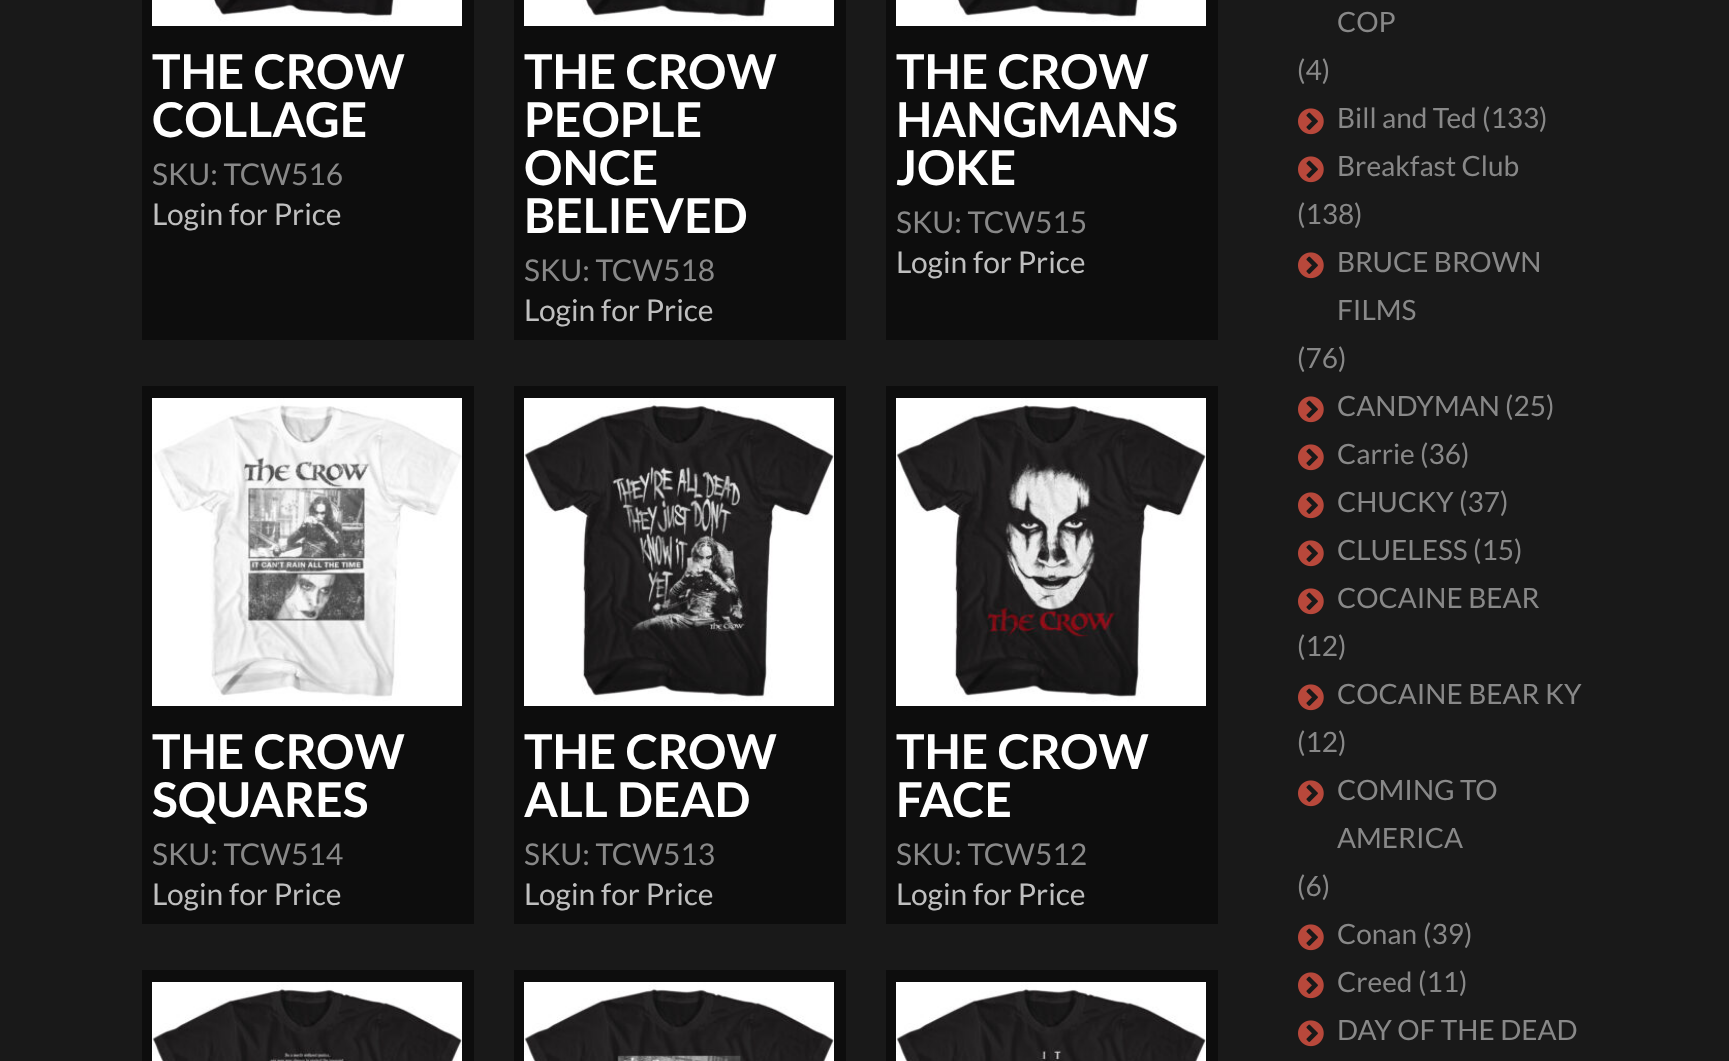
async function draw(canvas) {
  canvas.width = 1729
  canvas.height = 1061
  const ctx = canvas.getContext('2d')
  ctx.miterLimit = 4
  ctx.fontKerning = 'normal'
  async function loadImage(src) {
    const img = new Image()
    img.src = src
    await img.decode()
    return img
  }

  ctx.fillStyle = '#191919'
  ctx.fillRect(0, 0, 1729, 1061)
  ctx.fillStyle = '#0d0d0d'
  ctx.fillRect(142, 0, 332, 340)
  ctx.drawImage(await loadImage('image0.png'), 152, 0, 310, 26)
  ctx.font = 'bold 48px Lato'
  ctx.fillStyle = '#fff'
  ctx.fillText('THE CROW', 152, 89)
  ctx.fillText('COLLAGE', 152, 137)
  ctx.font = '30px Lato'
  ctx.fillStyle = '#888'
  ctx.fillText('SKU: TCW516', 152, 185)
  ctx.fillStyle = '#bfbfbf'
  ctx.fillText('Login for Price', 152, 225)
  ctx.fillStyle = '#0d0d0d'
  ctx.fillRect(514, 0, 332, 340)
  ctx.drawImage(await loadImage('image1.png'), 524, 0, 310, 26)
  ctx.font = 'bold 48px Lato'
  ctx.fillStyle = '#fff'
  ctx.fillText('THE CROW', 524, 89)
  ctx.fillText('PEOPLE', 524, 137)
  ctx.fillText('ONCE', 524, 185)
  ctx.fillText('BELIEVED', 524, 233)
  ctx.font = '30px Lato'
  ctx.fillStyle = '#888'
  ctx.fillText('SKU: TCW518', 524, 281)
  ctx.fillStyle = '#bfbfbf'
  ctx.fillText('Login for Price', 524, 321)
  ctx.fillStyle = '#0d0d0d'
  ctx.fillRect(886, 0, 332, 340)
  ctx.drawImage(await loadImage('image1.png'), 896, 0, 310, 26)
  ctx.font = 'bold 48px Lato'
  ctx.fillStyle = '#fff'
  ctx.fillText('THE CROW', 896, 89)
  ctx.fillText('HANGMANS', 896, 137)
  ctx.fillText('JOKE', 896, 185)
  ctx.font = '30px Lato'
  ctx.fillStyle = '#888'
  ctx.fillText('SKU: TCW515', 896, 233)
  ctx.fillStyle = '#bfbfbf'
  ctx.fillText('Login for Price', 896, 273)
  ctx.fillStyle = '#0d0d0d'
  ctx.fillRect(142, 386, 332, 538)
  ctx.drawImage(await loadImage('image2.png'), 152, 398, 310, 308)
  ctx.font = 'bold 48px Lato'
  ctx.fillStyle = '#fff'
  ctx.fillText('THE CROW', 152, 769)
  ctx.fillText('SQUARES', 152, 817)
  ctx.font = '30px Lato'
  ctx.fillStyle = '#888'
  ctx.fillText('SKU: TCW514', 152, 865)
  ctx.fillStyle = '#bfbfbf'
  ctx.fillText('Login for Price', 152, 905)
  ctx.fillStyle = '#0d0d0d'
  ctx.fillRect(514, 386, 332, 538)
  ctx.drawImage(await loadImage('image3.png'), 524, 398, 310, 308)
  ctx.font = 'bold 48px Lato'
  ctx.fillStyle = '#fff'
  ctx.fillText('THE CROW', 524, 769)
  ctx.fillText('ALL DEAD', 524, 817)
  ctx.font = '30px Lato'
  ctx.fillStyle = '#888'
  ctx.fillText('SKU: TCW513', 524, 865)
  ctx.fillStyle = '#bfbfbf'
  ctx.fillText('Login for Price', 524, 905)
  ctx.fillStyle = '#0d0d0d'
  ctx.fillRect(886, 386, 332, 538)
  ctx.drawImage(await loadImage('image4.png'), 896, 398, 310, 308)
  ctx.font = 'bold 48px Lato'
  ctx.fillStyle = '#fff'
  ctx.fillText('THE CROW', 896, 769)
  ctx.fillText('FACE', 896, 817)
  ctx.font = '30px Lato'
  ctx.fillStyle = '#888'
  ctx.fillText('SKU: TCW512', 896, 865)
  ctx.fillStyle = '#bfbfbf'
  ctx.fillText('Login for Price', 896, 905)
  ctx.fillStyle = '#0d0d0d'
  ctx.fillRect(142, 970, 332, 91)
  ctx.drawImage(await loadImage('image5.png'), 152, 982, 310, 79)
  ctx.fillRect(514, 970, 332, 91)
  ctx.drawImage(await loadImage('image6.png'), 524, 982, 310, 79)
  ctx.fillRect(886, 970, 332, 91)
  ctx.drawImage(await loadImage('image7.png'), 896, 982, 310, 79)
  ctx.font = '28px Lato'
  ctx.fillStyle = '#888'
  ctx.fillText('COP', 1337, 32)
  ctx.fillText('(4)', 1297, 80)
  ctx.drawImage(await loadImage('image8.png'), 1298, 108, 26, 27)
  ctx.fillText('Bill and Ted', 1337, 128)
  ctx.fillText('(133)', 1482, 128)
  ctx.drawImage(await loadImage('image8.png'), 1298, 156, 26, 27)
  ctx.fillText('Breakfast Club', 1337, 176)
  ctx.fillText('(138)', 1297, 224)
  ctx.drawImage(await loadImage('image8.png'), 1298, 252, 26, 27)
  ctx.fillText('BRUCE BROWN', 1337, 272)
  ctx.fillText('FILMS', 1337, 320)
  ctx.fillText('(76)', 1297, 368)
  ctx.drawImage(await loadImage('image8.png'), 1298, 396, 26, 27)
  ctx.fillText('CANDYMAN', 1337, 416)
  ctx.fillText('(25)', 1505, 416)
  ctx.drawImage(await loadImage('image8.png'), 1298, 444, 26, 27)
  ctx.fillText('Carrie', 1337, 464)
  ctx.fillText('(36)', 1420, 464)
  ctx.drawImage(await loadImage('image8.png'), 1298, 492, 26, 27)
  ctx.fillText('CHUCKY', 1337, 512)
  ctx.fillText('(37)', 1459, 512)
  ctx.drawImage(await loadImage('image8.png'), 1298, 540, 26, 27)
  ctx.fillText('CLUELESS', 1337, 560)
  ctx.fillText('(15)', 1473, 560)
  ctx.drawImage(await loadImage('image8.png'), 1298, 588, 26, 27)
  ctx.fillText('COCAINE BEAR', 1337, 608)
  ctx.fillText('(12)', 1297, 656)
  ctx.drawImage(await loadImage('image8.png'), 1298, 684, 26, 27)
  ctx.fillText('COCAINE BEAR KY', 1337, 704)
  ctx.fillText('(12)', 1297, 752)
  ctx.drawImage(await loadImage('image8.png'), 1298, 780, 26, 27)
  ctx.fillText('COMING TO', 1337, 800)
  ctx.fillText('AMERICA', 1337, 848)
  ctx.fillText('(6)', 1297, 896)
  ctx.drawImage(await loadImage('image8.png'), 1298, 924, 26, 27)
  ctx.fillText('Conan', 1337, 944)
  ctx.fillText('(39)', 1423, 944)
  ctx.drawImage(await loadImage('image8.png'), 1298, 972, 26, 27)
  ctx.fillText('Creed', 1337, 992)
  ctx.fillText('(11)', 1418, 992)
  ctx.drawImage(await loadImage('image8.png'), 1298, 1020, 26, 27)
  ctx.fillText('DAY OF THE DEAD', 1337, 1040)
}

draw(document.querySelector('canvas'))
